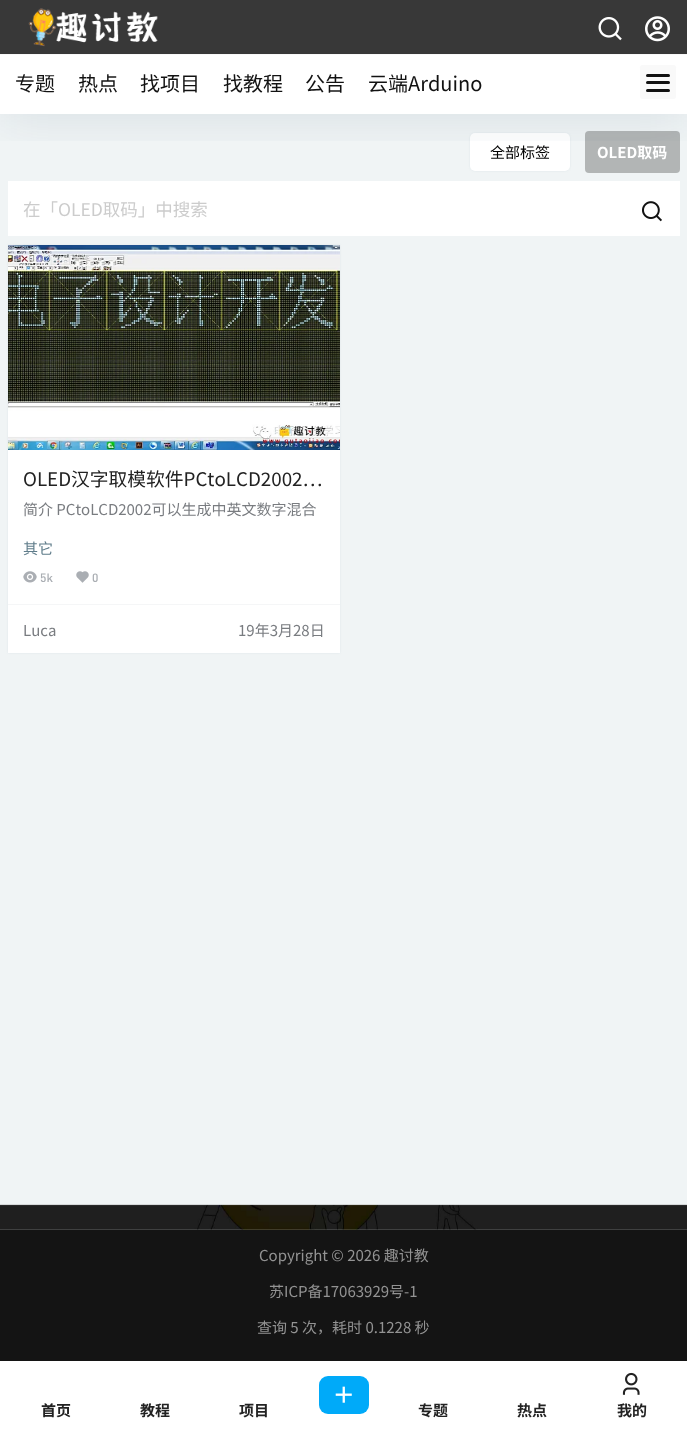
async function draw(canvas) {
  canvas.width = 687
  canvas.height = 1429
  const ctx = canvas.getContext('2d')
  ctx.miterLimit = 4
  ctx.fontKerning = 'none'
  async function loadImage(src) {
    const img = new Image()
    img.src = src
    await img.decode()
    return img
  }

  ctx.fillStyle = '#f0f4f5'
  ctx.fillRect(0, 0, 687, 1429)
  ctx.fillStyle = '#627c991a'
  ctx.filter = 'blur(1px)'
  ctx.beginPath()
  ctx.roundRect(470, 133, 100, 38, 5)
  ctx.fill()
  ctx.filter = 'none'
  ctx.fillStyle = '#fff'
  ctx.beginPath()
  ctx.roundRect(470, 133, 100, 38, 5)
  ctx.fill()
  ctx.fillStyle = '#b2b5b5'
  ctx.beginPath()
  ctx.roundRect(585, 131, 95, 42, 4)
  ctx.fill()
  ctx.fillStyle = '#fff'
  ctx.fillRect(8, 181, 672, 55)
  ctx.save()
  ctx.beginPath()
  ctx.rect(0, 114, 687, 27)
  ctx.clip()
  ctx.fillStyle = '#113a5d1a'
  ctx.filter = 'blur(25px)'
  ctx.beginPath()
  ctx.rect(0, 6, 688, 114)
  ctx.fill()
  ctx.filter = 'none'
  ctx.restore()
  ctx.fillStyle = '#232323e6'
  ctx.fillRect(0, 0, 687, 54)
  ctx.fillStyle = '#fff'
  ctx.fillRect(0, 55, 687, 59)
  ctx.fillStyle = '#f8f8f8'
  ctx.fillRect(0, 54, 687, 1)
  ctx.drawImage(await loadImage('image0.png'), 28, 8, 130, 39)
  ctx.font = '20px Noto Sans CJK SC'
  ctx.fillStyle = '#121212'
  ctx.fillText('专题', 15, 91)
  ctx.fillText('热点', 78, 91)
  ctx.fillText('找项目', 140, 91)
  ctx.fillText('找教程', 223, 91)
  ctx.fillText('公告', 305, 91)
  ctx.fillText('云端Arduino', 368, 91)
  ctx.drawImage(await loadImage('image1.png'), 598, 17, 24, 24)
  ctx.drawImage(await loadImage('image2.png'), 645, 16, 25, 26)
  ctx.fillStyle = '#f9f9f9'
  ctx.beginPath()
  ctx.roundRect(640, 65, 36, 34, 2.5)
  ctx.fill()
  ctx.fillStyle = '#121212'
  ctx.beginPath()
  ctx.roundRect(646, 74, 24, 3, 1.5)
  ctx.fill()
  ctx.beginPath()
  ctx.roundRect(646, 81, 24, 3, 1.5)
  ctx.fill()
  ctx.beginPath()
  ctx.roundRect(646, 89, 24, 3, 1.5)
  ctx.fill()
  ctx.font = '15px Noto Sans CJK SC'
  ctx.fillStyle = '#000'
  ctx.fillText('全部标签', 490, 158)
  ctx.font = 'bold 15px Noto Sans CJK SC'
  ctx.fillStyle = '#fff'
  ctx.fillText('OLED取码', 597, 158)
  ctx.font = '17.5px Noto Sans CJK SC'
  ctx.fillStyle = '#ccc'
  ctx.fillText('在「OLED取码」中搜索', 23, 216)
  ctx.drawImage(await loadImage('image3.png'), 642, 201, 20, 21)
  ctx.fillStyle = '#627c991a'
  ctx.filter = 'blur(1px)'
  ctx.beginPath()
  ctx.rect(8, 245, 332, 408)
  ctx.fill()
  ctx.filter = 'none'
  ctx.fillStyle = '#fff'
  ctx.fillRect(8, 450, 332, 203)
  ctx.drawImage(await loadImage('image4.png'), 8, 245, 332, 205)
  ctx.font = '18.75px Noto Sans CJK SC'
  ctx.fillStyle = '#222'
  ctx.fillText('OLED汉字取模软件PCtoLCD2002…', 23, 486)
  ctx.font = '15px Noto Sans CJK SC'
  ctx.fillStyle = '#797c80'
  ctx.fillText('简介 PCtoLCD2002可以生成中英文数字混合', 23, 515)
  ctx.fillStyle = '#607d8b'
  ctx.fillText('其它', 23, 554)
  ctx.drawImage(await loadImage('image5.png'), 23, 571, 14, 12)
  ctx.font = '500 12px DIN'
  ctx.fillStyle = '#aaaeb3'
  ctx.fillText('5k', 40, 582)
  ctx.drawImage(await loadImage('image6.png'), 76, 571, 13, 12)
  ctx.fillText('0', 92, 582)
  ctx.fillStyle = '#f5f6f7'
  ctx.fillRect(8, 604, 332, 1)
  ctx.font = '15px Noto Sans CJK SC'
  ctx.fillStyle = '#797c80'
  ctx.fillText('Luca', 23, 636)
  ctx.fillText('19年3月28日', 238, 636)
  ctx.drawImage(await loadImage('image7.png'), 0, 1204, 687, 26)
  ctx.fillStyle = '#141414'
  ctx.fillRect(0, 1230, 687, 131)
  ctx.fillStyle = '#939393'
  ctx.fillText('Copyright © 2026 趣讨教', 259, 1261)
  ctx.fillText('苏ICP备17063929号-1', 269, 1297)
  ctx.fillText('查询 5 次，耗时 0.1228 秒', 257, 1333)
  ctx.fillStyle = '#fff'
  ctx.fillRect(0, 1361, 687, 68)
  ctx.font = 'bold 15px Noto Sans CJK SC'
  ctx.fillStyle = '#222'
  ctx.fillText('首页', 41, 1416)
  ctx.fillText('教程', 140, 1416)
  ctx.fillText('项目', 239, 1416)
  ctx.fillStyle = '#00aaf9'
  ctx.beginPath()
  ctx.roundRect(319, 1376, 50, 38, 9)
  ctx.fill()
  ctx.drawImage(await loadImage('image8.png'), 335, 1386, 17, 17)
  ctx.fillStyle = '#222'
  ctx.fillText('专题', 418, 1416)
  ctx.fillText('热点', 517, 1416)
  ctx.drawImage(await loadImage('image9.png'), 622, 1372, 18, 23)
  ctx.fillText('我的', 617, 1416)
}

draw(document.querySelector('canvas'))
